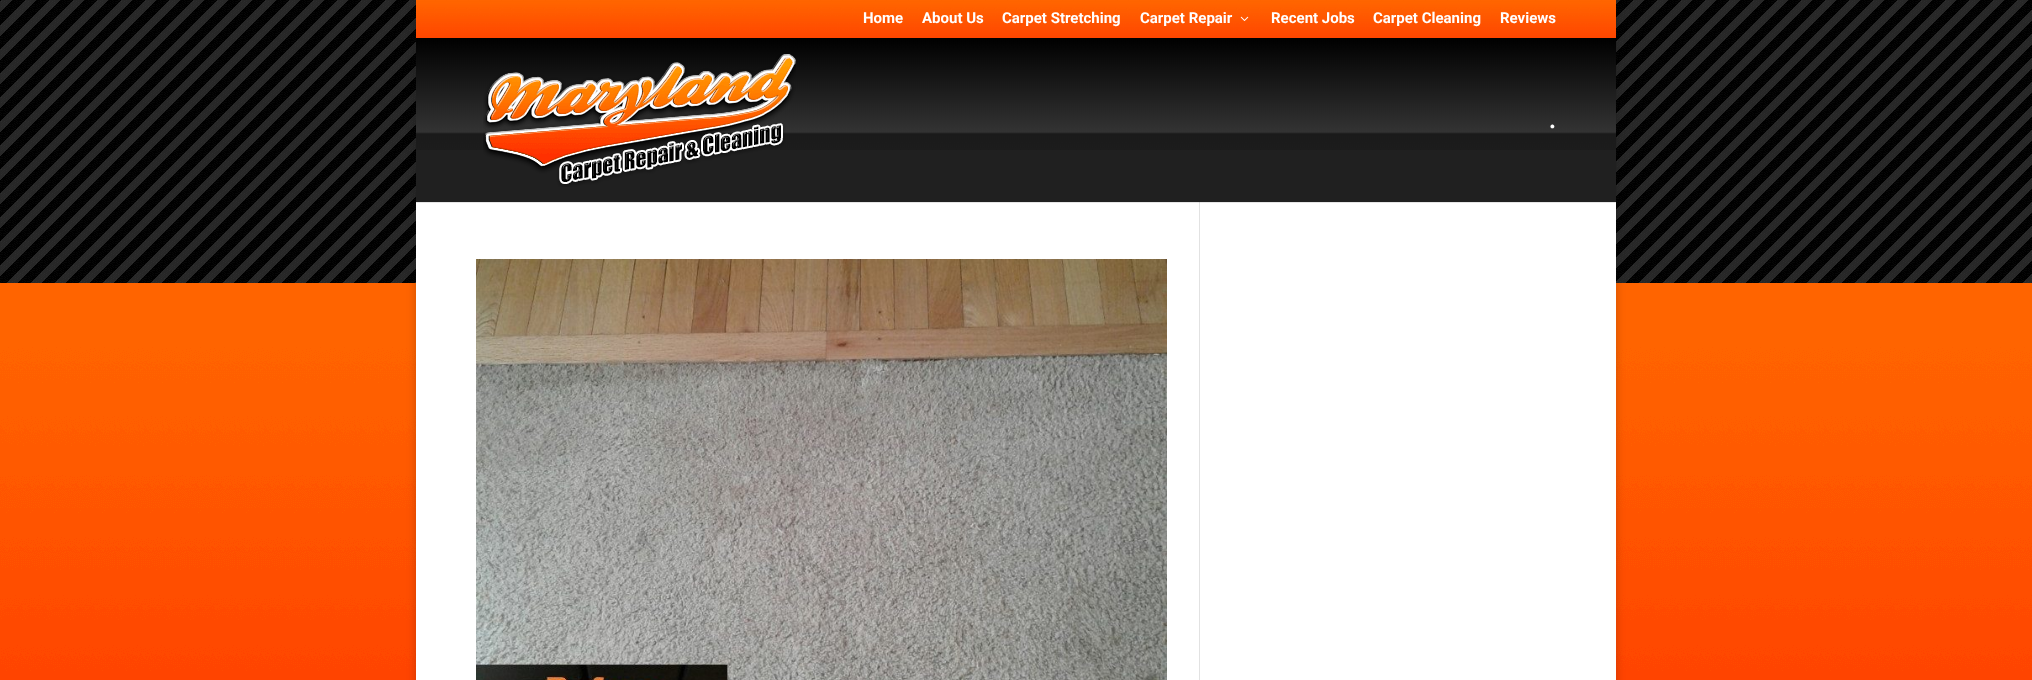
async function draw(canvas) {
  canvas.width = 2032
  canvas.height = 680
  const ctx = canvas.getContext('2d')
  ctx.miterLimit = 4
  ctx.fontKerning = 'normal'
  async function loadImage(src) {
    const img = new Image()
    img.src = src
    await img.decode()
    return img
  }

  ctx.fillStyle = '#fff'
  ctx.fillRect(0, 0, 2032, 680)
  ctx.drawImage(await loadImage('image0.png'), 0, 0, 2032, 680)
  ctx.fillStyle = '#00000033'
  ctx.filter = 'blur(5px)'
  ctx.beginPath()
  ctx.rect(416, 0, 1200, 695)
  ctx.fill()
  ctx.filter = 'none'
  ctx.drawImage(await loadImage('image1.png'), 416, 0, 1200, 38)
  ctx.font = 'bold 15px Roboto'
  ctx.fillStyle = '#fff'
  ctx.fillText('Home', 863, 23)
  ctx.fillText('About Us', 922, 23)
  ctx.fillText('Carpet Stretching', 1002, 23)
  ctx.fillText('Carpet Repair', 1140, 23)
  ctx.drawImage(await loadImage('image2.png'), 1240, 16, 9, 5)
  ctx.fillText('Recent Jobs', 1271, 23)
  ctx.fillText('Carpet Cleaning', 1373, 23)
  ctx.fillText('Reviews', 1500, 23)
  ctx.fillRect(416, 202, 1200, 478)
  ctx.fillStyle = '#e2e2e2'
  ctx.fillRect(1199, 201, 1, 479)
  ctx.fillStyle = '#0000001a'
  ctx.fillRect(416, 202, 1200, 1)
  ctx.fillStyle = '#202020'
  ctx.fillRect(416, 150, 1200, 52)
  ctx.drawImage(await loadImage('image3.png'), 416, 38, 1200, 112)
  ctx.drawImage(await loadImage('image4.png'), 483, 54, 313, 133)
  ctx.font = 'bold 24px Roboto'
  ctx.fillStyle = '#fff'
  ctx.fillText('.', 1549, 128)
  ctx.drawImage(await loadImage('image5.png'), 476, 259, 691, 421)
}

draw(document.querySelector('canvas'))
